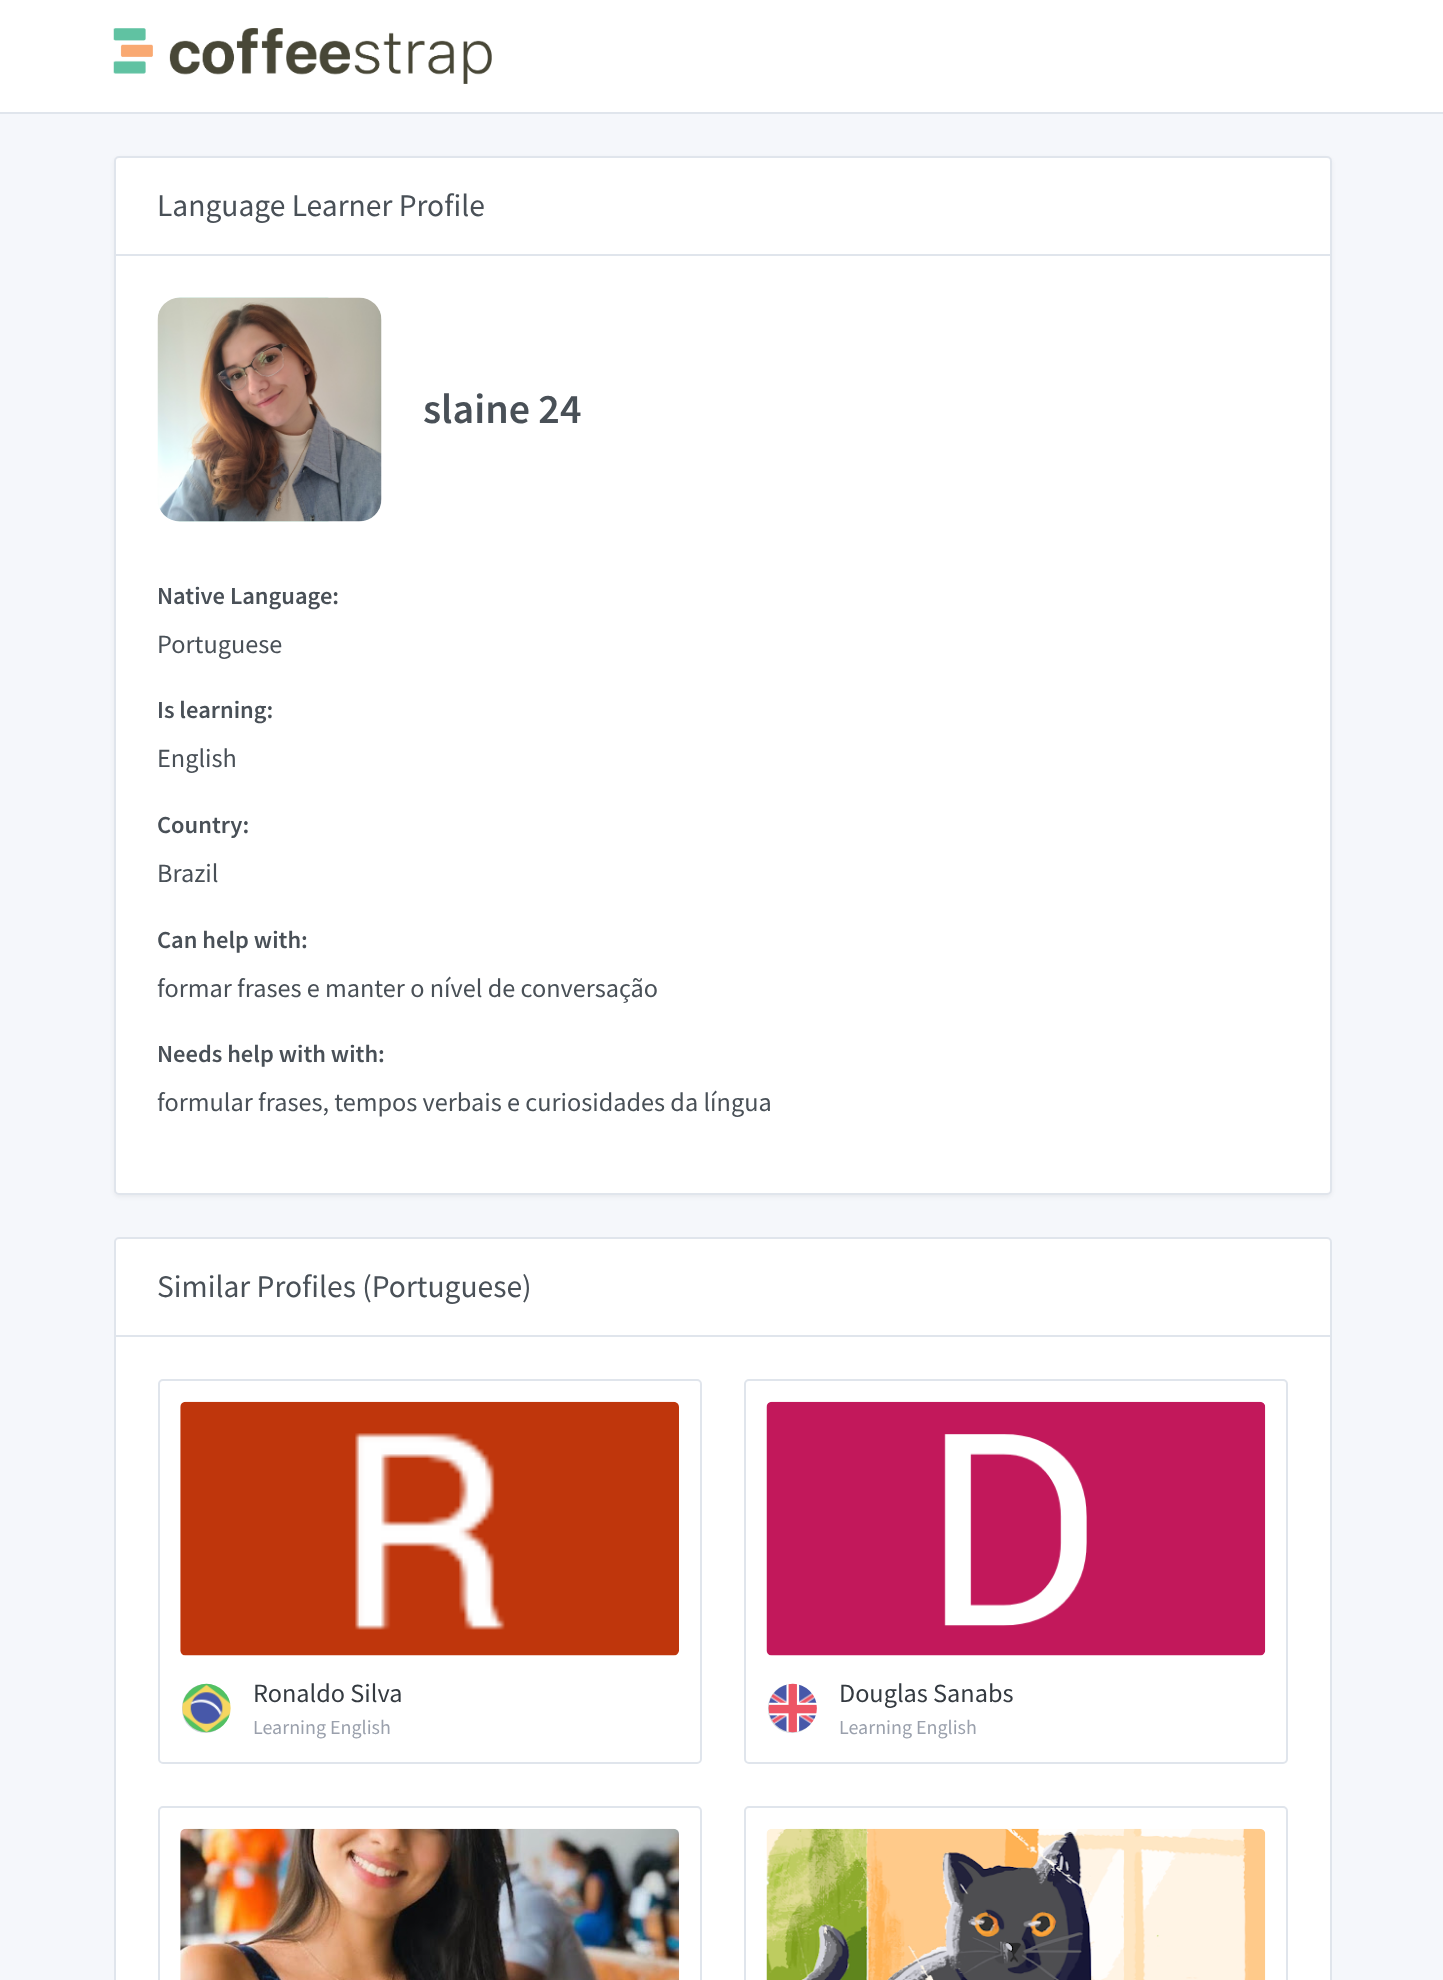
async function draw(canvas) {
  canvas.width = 1443
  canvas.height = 1980
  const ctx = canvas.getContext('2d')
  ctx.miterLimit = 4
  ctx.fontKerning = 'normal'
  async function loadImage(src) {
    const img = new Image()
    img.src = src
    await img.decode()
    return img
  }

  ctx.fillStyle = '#f5f7fb'
  ctx.fillRect(0, 0, 1443, 1980)
  ctx.fillStyle = '#fff'
  ctx.fillRect(0, 0, 1443, 112)
  ctx.fillStyle = '#e0e5ec'
  ctx.fillRect(0, 112, 1443, 2)
  ctx.drawImage(await loadImage('image0.png'), 113, 28, 379, 56)
  ctx.fillStyle = '#0000000d'
  ctx.filter = 'blur(2px)'
  ctx.beginPath()
  ctx.roundRect(114, 158, 1218, 1039, 5)
  ctx.fill()
  ctx.filter = 'none'
  ctx.fillStyle = '#fff'
  ctx.beginPath()
  ctx.roundRect(114, 156, 1218, 1039, 5)
  ctx.fill()
  ctx.beginPath()
  ctx.roundRect(115, 157, 1216, 1037, 4)
  ctx.strokeStyle = '#0028641f'
  ctx.lineWidth = 2
  ctx.stroke()
  ctx.fillStyle = '#e0e5ec'
  ctx.fillRect(116, 254, 1214, 2)
  ctx.font = '31.5px Source Sans Pro'
  ctx.fillStyle = '#495057'
  ctx.fillText('Language Learner Profile', 157, 216)
  ctx.drawImage(await loadImage('image1.png'), 157, 297, 225, 225)
  ctx.font = '600 42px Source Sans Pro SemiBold'
  ctx.fillText('slaine 24', 423, 423)
  ctx.font = '600 24.5px Source Sans Pro SemiBold'
  ctx.fillText('Native Language:', 157, 604)
  ctx.font = '26.25px Source Sans Pro'
  ctx.fillText('Portuguese', 157, 653)
  ctx.font = '600 24.5px Source Sans Pro SemiBold'
  ctx.fillText('Is learning:', 157, 718)
  ctx.font = '26.25px Source Sans Pro'
  ctx.fillText('English', 157, 767)
  ctx.font = '600 24.5px Source Sans Pro SemiBold'
  ctx.fillText('Country:', 157, 833)
  ctx.font = '26.25px Source Sans Pro'
  ctx.fillText('Brazil', 157, 882)
  ctx.font = '600 24.5px Source Sans Pro SemiBold'
  ctx.fillText('Can help with:', 157, 948)
  ctx.font = '26.25px Source Sans Pro'
  ctx.fillText('formar frases e manter o nível de conversação', 157, 997)
  ctx.font = '600 24.5px Source Sans Pro SemiBold'
  ctx.fillText('Needs help with with:', 157, 1062)
  ctx.font = '26.25px Source Sans Pro'
  ctx.fillText('formular frases, tempos verbais e curiosidades da língua', 157, 1111)
  ctx.fillStyle = '#fff'
  ctx.beginPath()
  ctx.roundRect(114, 1237, 1218, 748, 5)
  ctx.fill()
  ctx.beginPath()
  ctx.roundRect(115, 1238, 1216, 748, 4)
  ctx.stroke()
  ctx.fillStyle = '#e0e5ec'
  ctx.fillRect(116, 1335, 1214, 2)
  ctx.font = '31.5px Source Sans Pro'
  ctx.fillStyle = '#495057'
  ctx.fillText('Similar Profiles (Portuguese)', 157, 1297)
  ctx.beginPath()
  ctx.roundRect(159, 1380, 542, 383, 4)
  ctx.strokeStyle = '#e0e5ec'
  ctx.stroke()
  ctx.drawImage(await loadImage('image2.png'), 180, 1401, 499, 255)
  ctx.fillStyle = '#ced4da'
  ctx.beginPath()
  ctx.roundRect(182, 1684, 47, 49, 23.5)
  ctx.fill()
  ctx.drawImage(await loadImage('image3.png'), 182, 1683, 49, 50)
  ctx.font = '26.25px Source Sans Pro'
  ctx.fillStyle = '#343a40'
  ctx.fillText('Ronaldo Silva', 253, 1702)
  ctx.font = '20px Source Sans Pro'
  ctx.fillStyle = '#9aa0ac'
  ctx.fillText('Learning English', 253, 1734)
  ctx.beginPath()
  ctx.roundRect(745, 1380, 542, 383, 4)
  ctx.stroke()
  ctx.drawImage(await loadImage('image4.png'), 766, 1401, 500, 255)
  ctx.fillStyle = '#ced4da'
  ctx.beginPath()
  ctx.roundRect(768, 1684, 48, 49, 24)
  ctx.fill()
  ctx.drawImage(await loadImage('image5.png'), 768, 1683, 49, 50)
  ctx.font = '26.25px Source Sans Pro'
  ctx.fillStyle = '#343a40'
  ctx.fillText('Douglas Sanabs', 839, 1702)
  ctx.font = '20px Source Sans Pro'
  ctx.fillStyle = '#9aa0ac'
  ctx.fillText('Learning English', 839, 1734)
  ctx.beginPath()
  ctx.roundRect(159, 1807, 542, 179, 4)
  ctx.stroke()
  ctx.drawImage(await loadImage('image6.png'), 180, 1828, 499, 152)
  ctx.beginPath()
  ctx.roundRect(745, 1807, 542, 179, 4)
  ctx.stroke()
  ctx.drawImage(await loadImage('image7.png'), 766, 1828, 500, 152)
}

draw(document.querySelector('canvas'))
